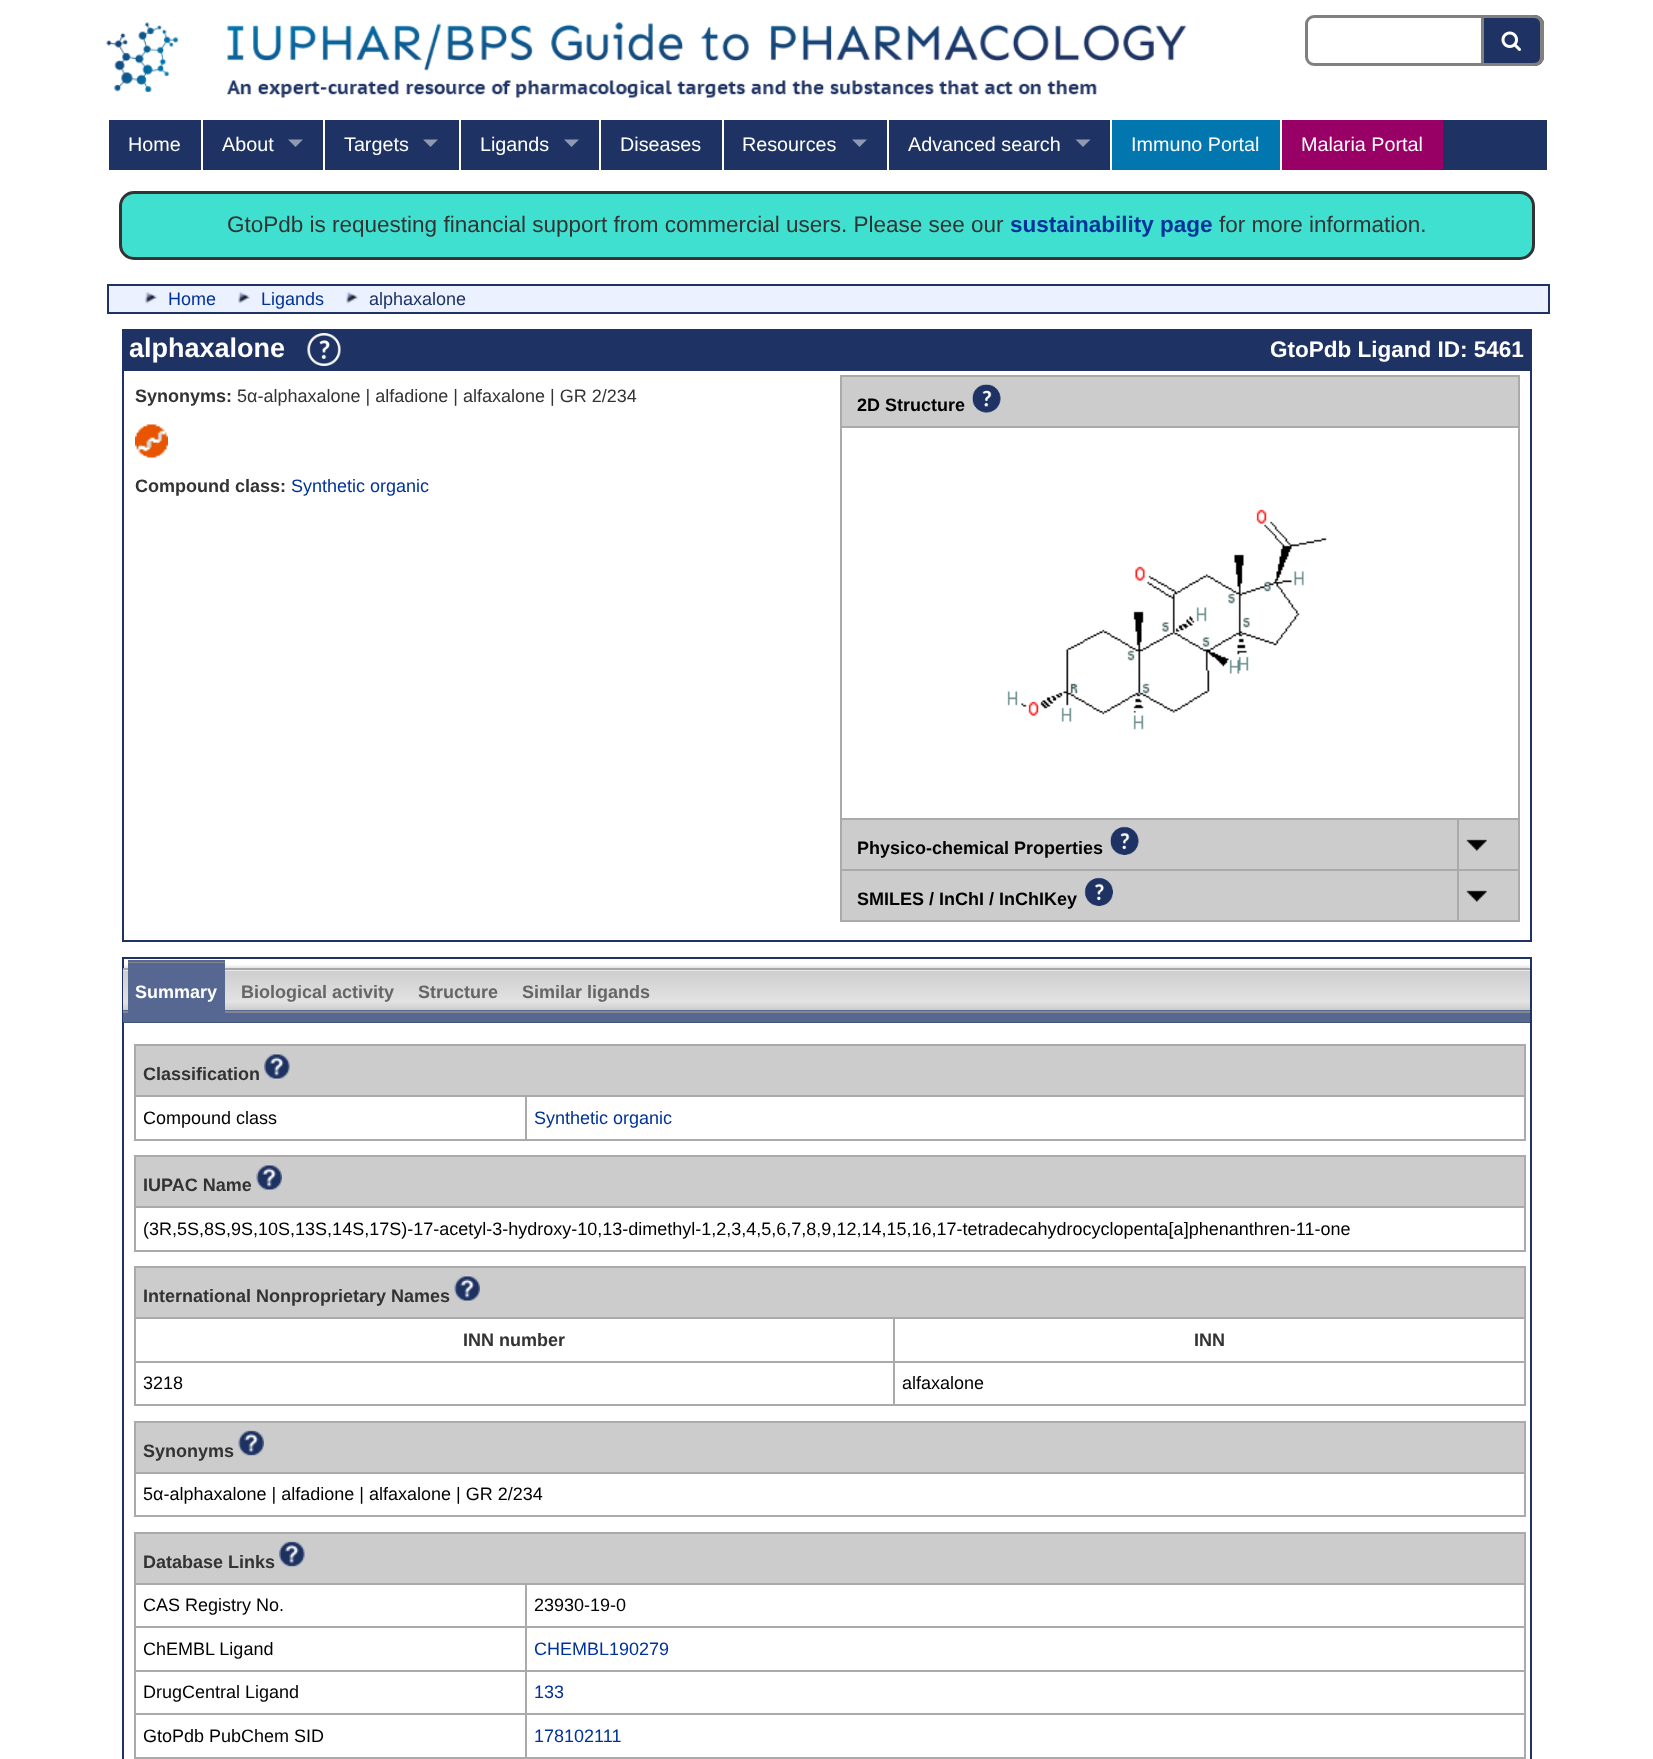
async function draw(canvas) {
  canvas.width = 1653
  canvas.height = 1759
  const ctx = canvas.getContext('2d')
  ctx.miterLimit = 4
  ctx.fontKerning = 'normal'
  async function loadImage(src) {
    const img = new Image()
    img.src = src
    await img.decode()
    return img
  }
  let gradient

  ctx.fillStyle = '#fff'
  ctx.fillRect(0, 0, 1653, 1759)
  ctx.drawImage(await loadImage('image0.png'), 106, 22, 1081, 76)
  ctx.beginPath()
  ctx.roundRect(1306.5, 16.5, 176, 48, [7.5, 0, 0, 7.5])
  ctx.strokeStyle = '#808080'
  ctx.lineWidth = 3
  ctx.stroke()
  ctx.fillStyle = '#1e3363'
  ctx.beginPath()
  ctx.roundRect(1484, 15, 60, 51, [0, 9, 9, 0])
  ctx.fill()
  ctx.fillStyle = '#808080'
  ctx.beginPath()
  ctx.moveTo(1484, 15)
  ctx.lineTo(1534, 15)
  ctx.bezierCurveTo(1539, 15, 1544, 19, 1544, 24)
  ctx.lineTo(1544, 57)
  ctx.bezierCurveTo(1544, 62, 1539, 66, 1534, 66)
  ctx.lineTo(1484, 66)
  ctx.closePath()
  ctx.moveTo(1484, 18)
  ctx.lineTo(1534, 18)
  ctx.bezierCurveTo(1538, 18, 1540, 21, 1540, 24)
  ctx.lineTo(1540, 57)
  ctx.bezierCurveTo(1540, 60, 1538, 63, 1534, 63)
  ctx.lineTo(1484, 63)
  ctx.closePath()
  ctx.fill('evenodd')
  ctx.drawImage(await loadImage('image1.png'), 1501, 31, 20, 20)
  ctx.fillStyle = '#1e3363'
  ctx.fillRect(109, 120, 1438, 50)
  ctx.font = '19.75px Liberation Sans'
  ctx.fillStyle = '#fff'
  ctx.fillText('Home', 128, 151)
  ctx.fillRect(201, 120, 2, 50)
  ctx.fillText('About', 222, 151)
  ctx.fillStyle = '#8f99b1'
  ctx.beginPath()
  ctx.moveTo(288, 139.5)
  ctx.lineTo(303, 139.5)
  ctx.lineTo(295.5, 147)
  ctx.closePath()
  ctx.fill()
  ctx.fillStyle = '#fff'
  ctx.fillRect(323, 120, 2, 50)
  ctx.fillText('Targets', 344, 151)
  ctx.fillStyle = '#8f99b1'
  ctx.beginPath()
  ctx.moveTo(423, 139.5)
  ctx.lineTo(438, 139.5)
  ctx.lineTo(430.5, 147)
  ctx.closePath()
  ctx.fill()
  ctx.fillStyle = '#fff'
  ctx.fillRect(459, 120, 2, 50)
  ctx.fillText('Ligands', 480, 151)
  ctx.fillStyle = '#8f99b1'
  ctx.beginPath()
  ctx.moveTo(564, 139.5)
  ctx.lineTo(579, 139.5)
  ctx.lineTo(571.5, 147)
  ctx.closePath()
  ctx.fill()
  ctx.fillStyle = '#fff'
  ctx.fillRect(599, 120, 2, 50)
  ctx.fillText('Diseases', 620, 151)
  ctx.fillRect(722, 120, 2, 50)
  ctx.fillText('Resources', 742, 151)
  ctx.fillStyle = '#8f99b1'
  ctx.beginPath()
  ctx.moveTo(852, 139.5)
  ctx.lineTo(867, 139.5)
  ctx.lineTo(859.5, 147)
  ctx.closePath()
  ctx.fill()
  ctx.fillStyle = '#fff'
  ctx.fillRect(887, 120, 2, 50)
  ctx.fillText('Advanced search', 908, 151)
  ctx.fillStyle = '#8f99b1'
  ctx.beginPath()
  ctx.moveTo(1075.5, 139.5)
  ctx.lineTo(1090.5, 139.5)
  ctx.lineTo(1083, 147)
  ctx.closePath()
  ctx.fill()
  ctx.fillStyle = '#0176af'
  ctx.fillRect(1112, 120, 168, 50)
  ctx.fillStyle = '#fff'
  ctx.fillRect(1110, 120, 2, 50)
  ctx.fillText('Immuno Portal', 1131, 151)
  ctx.fillStyle = '#906'
  ctx.fillRect(1282, 120, 161, 50)
  ctx.fillStyle = '#fff'
  ctx.fillRect(1280, 120, 2, 50)
  ctx.fillText('Malaria Portal', 1301, 151)
  ctx.fillStyle = '#40e0d0'
  ctx.beginPath()
  ctx.roundRect(120.5, 192.5, 1413, 66, 13.5)
  ctx.fill()
  ctx.strokeStyle = '#333'
  ctx.stroke()
  ctx.font = '22.5px Liberation Sans'
  ctx.fillStyle = '#333'
  ctx.fillText('GtoPdb is requesting financial support from commercial users. Please see our', 227, 232)
  ctx.font = 'bold 22.5px Liberation Sans'
  ctx.fillStyle = '#039'
  ctx.fillText('sustainability page', 1010, 232)
  ctx.font = '22.5px Liberation Sans'
  ctx.fillStyle = '#333'
  ctx.fillText('for more information.', 1219, 232)
  ctx.fillStyle = '#ebf1ff'
  ctx.beginPath()
  ctx.rect(108, 285, 1441, 28)
  ctx.fill()
  ctx.strokeStyle = '#1e3363'
  ctx.lineWidth = 2
  ctx.stroke()
  ctx.drawImage(await loadImage('image2.png'), 145, 292, 13, 12)
  ctx.font = '18px Liberation Sans'
  ctx.fillStyle = '#039'
  ctx.fillText('Home', 168, 305)
  ctx.drawImage(await loadImage('image2.png'), 238, 292, 13, 12)
  ctx.fillText('Ligands', 261, 305)
  ctx.drawImage(await loadImage('image3.png'), 346, 292, 13, 12)
  ctx.fillStyle = '#1e3363'
  ctx.fillText('alphaxalone', 369, 305)
  ctx.fillRect(122, 329, 1410, 40)
  ctx.font = 'bold 27px Liberation Sans'
  ctx.fillStyle = '#fff'
  ctx.fillText('alphaxalone', 129, 357)
  ctx.drawImage(await loadImage('image4.png'), 307, 333, 34, 33)
  ctx.font = 'bold 22.5px Liberation Sans'
  ctx.fillText('GtoPdb Ligand ID: 5461', 1270, 357)
  ctx.strokeRect(123, 370, 1408, 571)
  ctx.font = 'bold 18px Liberation Sans'
  ctx.fillStyle = '#333'
  ctx.fillText('Synonyms:', 135, 402)
  ctx.font = '18px Liberation Sans'
  ctx.fillText('5α-alphaxalone | alfadione | alfaxalone | GR 2/234', 237, 402)
  ctx.drawImage(await loadImage('image5.png'), 135, 424, 33, 34)
  ctx.font = 'bold 18px Liberation Sans'
  ctx.fillText('Compound class:', 135, 492)
  ctx.font = '18px Liberation Sans'
  ctx.fillStyle = '#039'
  ctx.fillText('Synthetic organic', 291, 492)
  ctx.fillStyle = '#aaa'
  ctx.fillRect(840, 375, 680, 2)
  ctx.fillRect(840, 426, 680, 2)
  ctx.fillRect(840, 818, 680, 2)
  ctx.fillRect(840, 869, 680, 2)
  ctx.fillRect(840, 920, 680, 2)
  ctx.fillRect(1518, 869, 2, 52)
  ctx.fillRect(1518, 818, 2, 52)
  ctx.fillRect(1518, 426, 2, 393)
  ctx.fillRect(1518, 375, 2, 53)
  ctx.fillRect(840, 869, 2, 52)
  ctx.fillRect(840, 818, 2, 52)
  ctx.fillRect(840, 426, 2, 393)
  ctx.fillRect(840, 375, 2, 53)
  ctx.fillStyle = '#ccc'
  ctx.fillRect(842, 377, 676, 49)
  ctx.font = 'bold 18px Liberation Sans'
  ctx.fillStyle = '#000'
  ctx.fillText('2D Structure', 857, 411)
  ctx.drawImage(await loadImage('image6.png'), 972, 384, 29, 29)
  ctx.drawImage(await loadImage('image7.png'), 1007, 509, 320, 221)
  ctx.fillStyle = '#ccc'
  ctx.fillRect(842, 820, 615, 49)
  ctx.fillStyle = '#000'
  ctx.fillText('Physico-chemical Properties', 857, 854)
  ctx.drawImage(await loadImage('image8.png'), 1110, 826, 29, 29)
  ctx.fillStyle = '#ccc'
  ctx.fillRect(1459, 820, 59, 49)
  ctx.drawImage(await loadImage('image9.png'), 1466, 839, 21, 12)
  ctx.fillRect(842, 871, 615, 49)
  ctx.fillStyle = '#000'
  ctx.fillText('SMILES / InChI / InChIKey', 857, 905)
  ctx.drawImage(await loadImage('image10.png'), 1084, 877, 29, 29)
  ctx.fillStyle = '#ccc'
  ctx.fillRect(1459, 871, 59, 49)
  ctx.fillStyle = '#aaa'
  ctx.fillRect(1457, 818, 2, 103)
  ctx.drawImage(await loadImage('image9.png'), 1466, 890, 21, 12)
  ctx.strokeRect(123, 958, 1408, 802)
  ctx.fillStyle = '#0000001a'
  ctx.filter = 'blur(1px)'
  ctx.beginPath()
  ctx.rect(123, 966, 1407, 42)
  ctx.fill()
  ctx.filter = 'none'
  ctx.fillStyle = '#455375'
  ctx.fillRect(123, 1022, 1407, 1)
  ctx.fillStyle = '#566892'
  ctx.fillRect(123, 1013, 1407, 9)
  ctx.fillStyle = '#85878c'
  ctx.fillRect(123, 1011, 1407, 2)
  ctx.fillStyle = '#566892'
  ctx.fillRect(123, 1010, 1407, 1)
  gradient = ctx.createLinearGradient(827, 969, 827, 1010)
  gradient.addColorStop(0, '#cdcdcd')
  gradient.addColorStop(0.8, '#e2e2e2')
  gradient.addColorStop(1, '#cdcdcd')
  ctx.fillStyle = gradient
  ctx.fillRect(123, 971, 1407, 39)
  ctx.fillStyle = '#e9e9e9'
  ctx.fillRect(123, 970, 1407, 1)
  ctx.fillStyle = '#a8a8a8'
  ctx.fillRect(123, 968, 1407, 2)
  ctx.fillStyle = '#566892'
  ctx.fillRect(128, 960, 97, 2)
  ctx.fillStyle = '#85878c'
  ctx.fillRect(128, 962, 97, 1)
  ctx.fillStyle = '#566892'
  ctx.fillRect(128, 963, 97, 50)
  ctx.fillStyle = '#fff'
  ctx.fillText('Summary', 135, 998)
  ctx.fillStyle = '#666'
  ctx.fillText('Biological activity', 241, 998)
  ctx.fillText('Structure', 418, 998)
  ctx.fillText('Similar ligands', 522, 998)
  ctx.fillStyle = '#ccc'
  ctx.fillRect(136, 1046, 1388, 49)
  ctx.fillStyle = '#aaa'
  ctx.fillRect(134, 1044, 1392, 2)
  ctx.fillRect(525, 1095, 1001, 2)
  ctx.fillRect(1524, 1095, 2, 45)
  ctx.fillRect(1524, 1044, 2, 53)
  ctx.fillRect(525, 1139, 1001, 2)
  ctx.fillRect(525, 1095, 2, 45)
  ctx.fillRect(134, 1095, 393, 2)
  ctx.fillRect(134, 1139, 393, 2)
  ctx.fillRect(134, 1095, 2, 45)
  ctx.fillRect(134, 1044, 2, 53)
  ctx.fillStyle = '#333'
  ctx.fillText('Classification', 143, 1080)
  ctx.drawImage(await loadImage('image11.png'), 264, 1053, 26, 27)
  ctx.font = '18px Liberation Sans'
  ctx.fillStyle = '#000'
  ctx.fillText('Compound class', 143, 1124)
  ctx.fillStyle = '#039'
  ctx.fillText('Synthetic organic', 534, 1124)
  ctx.fillStyle = '#ccc'
  ctx.fillRect(136, 1157, 1388, 49)
  ctx.fillStyle = '#aaa'
  ctx.fillRect(134, 1155, 1392, 2)
  ctx.fillRect(134, 1206, 1392, 2)
  ctx.fillRect(1524, 1206, 2, 45)
  ctx.fillRect(1524, 1155, 2, 53)
  ctx.fillRect(134, 1250, 1392, 2)
  ctx.fillRect(134, 1206, 2, 45)
  ctx.fillRect(134, 1155, 2, 53)
  ctx.font = 'bold 18px Liberation Sans'
  ctx.fillStyle = '#333'
  ctx.fillText('IUPAC Name', 143, 1191)
  ctx.drawImage(await loadImage('image12.png'), 256, 1164, 26, 27)
  ctx.font = '18px Liberation Sans'
  ctx.fillStyle = '#000'
  ctx.fillText('(3R,5S,8S,9S,10S,13S,14S,17S)-17-acetyl-3-hydroxy-10,13-dimethyl-1,2,3,4,5,6,7,8,9,12,14,15,16,17-tetradecahydrocyclopenta[a]phenanthren-11-one', 143, 1235)
  ctx.fillStyle = '#ccc'
  ctx.fillRect(136, 1268, 1388, 49)
  ctx.fillStyle = '#aaa'
  ctx.fillRect(134, 1266, 1392, 2)
  ctx.fillRect(893, 1317, 633, 2)
  ctx.fillRect(134, 1361, 1392, 2)
  ctx.fillRect(1524, 1361, 2, 45)
  ctx.fillRect(1524, 1317, 2, 45)
  ctx.fillRect(1524, 1266, 2, 53)
  ctx.fillRect(134, 1404, 1392, 2)
  ctx.fillRect(893, 1361, 2, 45)
  ctx.fillRect(893, 1317, 2, 45)
  ctx.fillRect(134, 1317, 760, 2)
  ctx.fillRect(134, 1361, 2, 45)
  ctx.fillRect(134, 1317, 2, 45)
  ctx.fillRect(134, 1266, 2, 53)
  ctx.font = 'bold 18px Liberation Sans'
  ctx.fillStyle = '#333'
  ctx.fillText('International Nonproprietary Names', 143, 1302)
  ctx.drawImage(await loadImage('image12.png'), 454, 1275, 26, 27)
  ctx.fillText('INN number', 463, 1346)
  ctx.fillText('INN', 1194, 1346)
  ctx.font = '18px Liberation Sans'
  ctx.fillStyle = '#000'
  ctx.fillText('3218', 143, 1389)
  ctx.fillText('alfaxalone', 902, 1389)
  ctx.fillStyle = '#ccc'
  ctx.fillRect(136, 1423, 1388, 49)
  ctx.fillStyle = '#aaa'
  ctx.fillRect(134, 1421, 1392, 2)
  ctx.fillRect(134, 1472, 1392, 2)
  ctx.fillRect(1524, 1472, 2, 45)
  ctx.fillRect(1524, 1421, 2, 52)
  ctx.fillRect(134, 1515, 1392, 2)
  ctx.fillRect(134, 1472, 2, 45)
  ctx.fillRect(134, 1421, 2, 52)
  ctx.font = 'bold 18px Liberation Sans'
  ctx.fillStyle = '#333'
  ctx.fillText('Synonyms', 143, 1457)
  ctx.drawImage(await loadImage('image13.png'), 238, 1430, 26, 26)
  ctx.font = '18px Liberation Sans'
  ctx.fillStyle = '#000'
  ctx.fillText('5α-alphaxalone | alfadione | alfaxalone | GR 2/234', 143, 1500)
  ctx.fillStyle = '#ccc'
  ctx.fillRect(136, 1534, 1388, 49)
  ctx.fillStyle = '#aaa'
  ctx.fillRect(134, 1532, 1392, 2)
  ctx.fillRect(525, 1583, 1001, 2)
  ctx.fillRect(525, 1626, 1001, 2)
  ctx.fillRect(525, 1670, 1001, 2)
  ctx.fillRect(525, 1713, 1001, 2)
  ctx.fillRect(134, 1757, 1392, 2)
  ctx.fillRect(1524, 1713, 2, 45)
  ctx.fillRect(1524, 1670, 2, 45)
  ctx.fillRect(1524, 1626, 2, 45)
  ctx.fillRect(1524, 1583, 2, 45)
  ctx.fillRect(1524, 1532, 2, 52)
  ctx.fillRect(525, 1713, 2, 45)
  ctx.fillRect(134, 1713, 393, 2)
  ctx.fillRect(525, 1670, 2, 45)
  ctx.fillRect(134, 1670, 393, 2)
  ctx.fillRect(525, 1626, 2, 45)
  ctx.fillRect(134, 1626, 393, 2)
  ctx.fillRect(525, 1583, 2, 45)
  ctx.fillRect(134, 1583, 393, 2)
  ctx.fillRect(134, 1713, 2, 45)
  ctx.fillRect(134, 1670, 2, 45)
  ctx.fillRect(134, 1626, 2, 45)
  ctx.fillRect(134, 1583, 2, 45)
  ctx.fillRect(134, 1532, 2, 52)
  ctx.font = 'bold 18px Liberation Sans'
  ctx.fillStyle = '#333'
  ctx.fillText('Database Links', 143, 1568)
  ctx.drawImage(await loadImage('image14.png'), 279, 1541, 26, 26)
  ctx.font = '18px Liberation Sans'
  ctx.fillStyle = '#000'
  ctx.fillText('CAS Registry No.', 143, 1611)
  ctx.fillText('23930-19-0', 534, 1611)
  ctx.fillText('ChEMBL Ligand', 143, 1655)
  ctx.fillStyle = '#039'
  ctx.fillText('CHEMBL190279', 534, 1655)
  ctx.fillStyle = '#000'
  ctx.fillText('DrugCentral Ligand', 143, 1698)
  ctx.fillStyle = '#039'
  ctx.fillText('133', 534, 1698)
  ctx.fillStyle = '#000'
  ctx.fillText('GtoPdb PubChem SID', 143, 1742)
  ctx.fillStyle = '#039'
  ctx.fillText('178102111', 534, 1742)
}

draw(document.querySelector('canvas'))
